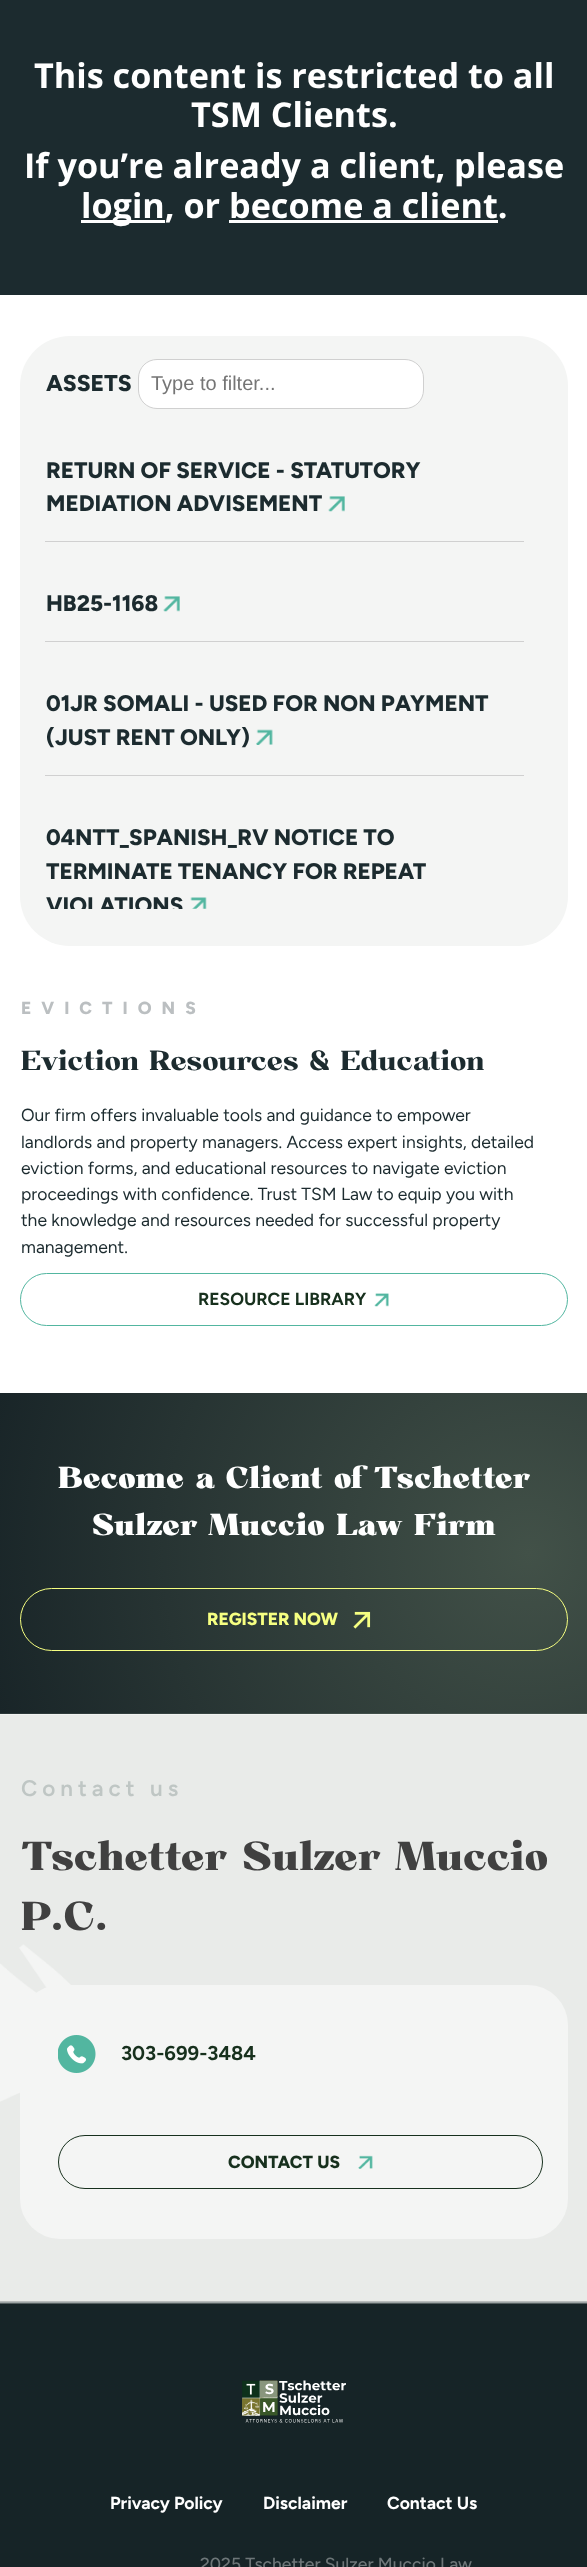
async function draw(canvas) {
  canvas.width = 587
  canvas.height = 2567
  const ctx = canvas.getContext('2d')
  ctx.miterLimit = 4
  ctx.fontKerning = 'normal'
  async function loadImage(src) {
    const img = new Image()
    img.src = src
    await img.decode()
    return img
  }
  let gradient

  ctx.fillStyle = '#fff'
  ctx.fillRect(0, 0, 587, 2567)
  ctx.fillStyle = '#1c2b2f'
  ctx.fillRect(0, 0, 587, 295)
  ctx.font = 'bold 34.2px Open Sans'
  ctx.fillStyle = '#fff'
  ctx.fillText('This content is restricted to all', 34, 88)
  ctx.fillText('TSM Clients.', 191, 127)
  ctx.fillText('If you’re already a client, please', 24, 178)
  ctx.fillRect(81, 220, 84, 3)
  ctx.fillText('login, or become a client.', 81, 218)
  ctx.fillRect(229, 220, 269, 3)
  ctx.fillStyle = '#f4f5f4'
  ctx.beginPath()
  ctx.roundRect(20, 336, 548, 610, 50)
  ctx.fill()
  ctx.font = '800 23px Figtree'
  ctx.fillStyle = '#1c2b2f'
  ctx.fillText('ASSETS', 46, 391)
  ctx.fillStyle = '#fff'
  ctx.beginPath()
  ctx.roundRect(138.5, 359.5, 285, 49, 18.5)
  ctx.fill()
  ctx.strokeStyle = '#d0d0d0'
  ctx.stroke()
  ctx.font = '20px Liberation Sans'
  ctx.fillStyle = '#757575'
  ctx.fillText('Type to filter...', 151, 390)
  ctx.fillStyle = '#d0d0d0'
  ctx.fillRect(45, 541, 479, 1)
  ctx.font = '800 22.5px Figtree'
  ctx.fillStyle = '#1c2b2f'
  ctx.fillText('RETURN OF SERVICE - STATUTORY', 46, 478)
  ctx.fillText('MEDIATION ADVISEMENT', 46, 511)
  ctx.drawImage(await loadImage('image0.png'), 328, 496, 17, 16)
  ctx.fillStyle = '#d0d0d0'
  ctx.fillRect(45, 641, 479, 1)
  ctx.fillStyle = '#1c2b2f'
  ctx.fillText('HB25-1168', 46, 611)
  ctx.drawImage(await loadImage('image0.png'), 163, 596, 17, 16)
  ctx.fillStyle = '#d0d0d0'
  ctx.fillRect(45, 775, 479, 1)
  ctx.fillStyle = '#1c2b2f'
  ctx.fillText('01JR SOMALI - USED FOR NON PAYMENT', 46, 711)
  ctx.fillText('(JUST RENT ONLY)', 46, 745)
  ctx.drawImage(await loadImage('image1.png'), 256, 729, 17, 16)
  ctx.fillText('04NTT_SPANISH_RV NOTICE TO', 46, 845)
  ctx.fillText('TERMINATE TENANCY FOR REPEAT', 46, 879)
  ctx.save()
  ctx.beginPath()
  ctx.rect(45, 409, 498, 500)
  ctx.clip()
  ctx.fillText('VIOLATIONS', 46, 913)
  ctx.restore()
  ctx.drawImage(await loadImage('image2.png'), 190, 897, 17, 12)
  ctx.letterSpacing = '10px'
  ctx.font = '800 17.5px Figtree'
  ctx.fillStyle = '#bbbfc1'
  ctx.fillText('EVICTIONS', 21, 1014)
  ctx.letterSpacing = '0px'
  ctx.font = '800 27.5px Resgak'
  ctx.fillStyle = '#1c2b2f'
  ctx.fillText('Eviction Resources & Education', 21, 1070)
  ctx.font = '17.5px Figtree'
  ctx.fillText('Our firm offers invaluable tools and guidance to empower', 21, 1121)
  ctx.fillText('landlords and property managers. Access expert insights, detailed', 21, 1148)
  ctx.fillText('eviction forms, and educational resources to navigate eviction', 21, 1174)
  ctx.fillText('proceedings with confidence. Trust TSM Law to equip you with', 21, 1200)
  ctx.fillText('the knowledge and resources needed for successful property', 21, 1226)
  ctx.fillText('management.', 21, 1253)
  ctx.beginPath()
  ctx.roundRect(20.5, 1273.5, 547, 52, 26)
  ctx.strokeStyle = '#52b6a0'
  ctx.stroke()
  ctx.font = 'bold 17.5px Figtree'
  ctx.fillStyle = '#17301d'
  ctx.fillText('RESOURCE LIBRARY', 198, 1305)
  ctx.drawImage(await loadImage('image3.png'), 374, 1293, 15, 14)
  gradient = ctx.createRadialGradient(529, 1553, 0, 529, 1553, 553)
  gradient.addColorStop(0, '#425148')
  gradient.addColorStop(1, '#192528')
  ctx.fillStyle = gradient
  ctx.fillRect(0, 1393, 587, 321)
  ctx.font = '800 30px "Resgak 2"'
  ctx.fillStyle = '#fff'
  ctx.fillText('Become a Client of Tschetter', 58, 1488)
  ctx.fillText('Sulzer Muccio Law Firm', 92, 1535)
  ctx.beginPath()
  ctx.roundRect(20.5, 1588.5, 547, 62, 31)
  ctx.strokeStyle = '#f6ff81'
  ctx.stroke()
  ctx.font = '800 17.5px Figtree'
  ctx.fillStyle = '#f6ff81'
  ctx.fillText('REGISTER NOW', 207, 1625)
  ctx.drawImage(await loadImage('image4.png'), 353, 1611, 18, 18)
  ctx.drawImage(await loadImage('image5.png'), 0, 1713, 587, 589)
  ctx.letterSpacing = '5px'
  ctx.font = '600 22.5px Figtree'
  ctx.fillStyle = '#bfc6c4'
  ctx.fillText('Contact us', 21, 1796)
  ctx.letterSpacing = '0px'
  ctx.font = '900 40px Resgak'
  ctx.fillStyle = '#404040'
  ctx.fillText('Tschetter Sulzer Muccio', 21, 1870)
  ctx.fillText('P.C.', 21, 1930)
  ctx.fillStyle = '#f4f5f4'
  ctx.beginPath()
  ctx.roundRect(20, 1985, 548, 254, 40)
  ctx.fill()
  ctx.drawImage(await loadImage('image6.png'), 58, 2035, 38, 38)
  ctx.font = 'bold 20px Figtree'
  ctx.fillStyle = '#17301d'
  ctx.fillText('303-699-3484', 121, 2060)
  ctx.beginPath()
  ctx.roundRect(58.5, 2135.5, 484, 53, 26.5)
  ctx.strokeStyle = '#17301d'
  ctx.stroke()
  ctx.font = '800 17.5px Figtree'
  ctx.fillText('CONTACT US', 228, 2168)
  ctx.drawImage(await loadImage('image7.png'), 358, 2155, 15, 14)
  ctx.drawImage(await loadImage('image8.png'), 0, 2301, 587, 266)
  ctx.drawImage(await loadImage('image9.png'), 242, 2380, 104, 43)
  ctx.font = 'bold 17.5px Figtree'
  ctx.fillStyle = '#fff'
  ctx.fillText('Privacy Policy', 110, 2509)
  ctx.fillText('Disclaimer', 263, 2509)
  ctx.fillText('Contact Us', 387, 2509)
  ctx.font = '500 17.5px Figtree'
  ctx.fillStyle = '#6d7678'
  ctx.fillText('2025 Tschetter Sulzer Muccio Law', 200, 2570)
}

draw(document.querySelector('canvas'))
